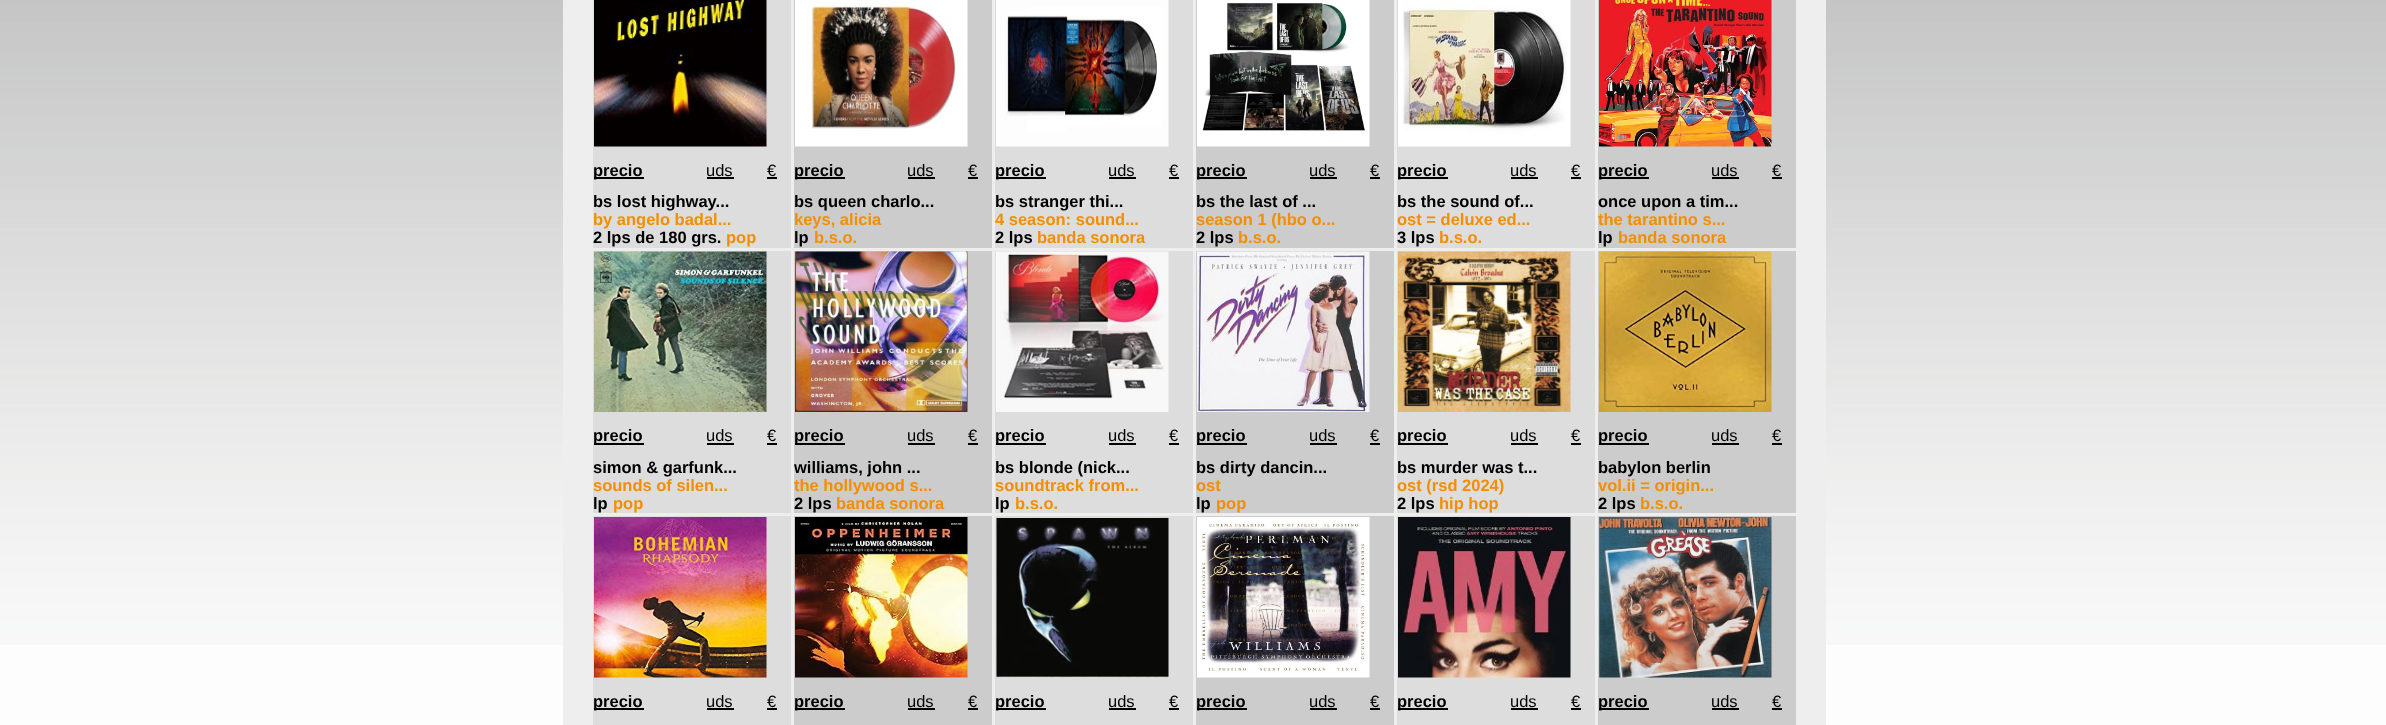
async function draw(canvas) {
  canvas.width = 2386
  canvas.height = 725
  const ctx = canvas.getContext('2d')
  ctx.miterLimit = 4
  ctx.fontKerning = 'normal'
  async function loadImage(src) {
    const img = new Image()
    img.src = src
    await img.decode()
    return img
  }

  ctx.fillStyle = '#fdfdfd'
  ctx.fillRect(0, 0, 2386, 725)
  ctx.drawImage(await loadImage('image0.png'), 0, 0, 2386, 645)
  ctx.fillStyle = '#eee'
  ctx.fillRect(563, 0, 1263, 725)
  ctx.fillStyle = '#ddd'
  ctx.fillRect(593, 0, 198, 248)
  ctx.drawImage(await loadImage('image1.png'), 594, 0, 173, 147)
  ctx.fillStyle = '#000'
  ctx.fillRect(594, 177, 50, 2)
  ctx.font = 'bold 16.5px Liberation Sans'
  ctx.fillText('precio', 593, 176)
  ctx.font = '16.5px Liberation Sans'
  ctx.fillText('uds', 706, 176)
  ctx.fillRect(707, 177, 27, 2)
  ctx.fillText('€', 767, 176)
  ctx.fillRect(767, 177, 10, 2)
  ctx.font = 'bold 16.5px Liberation Sans'
  ctx.fillText('bs lost highway...', 593, 207)
  ctx.fillStyle = '#f28e00'
  ctx.fillText('by angelo badal...', 593, 225)
  ctx.fillStyle = '#000'
  ctx.fillText('2 lps de 180 grs.', 593, 243)
  ctx.fillStyle = '#f28e00'
  ctx.fillText('pop', 726, 243)
  ctx.fillStyle = '#ccc'
  ctx.fillRect(794, 0, 198, 248)
  ctx.drawImage(await loadImage('image2.png'), 795, 0, 173, 147)
  ctx.fillStyle = '#000'
  ctx.fillRect(795, 177, 50, 2)
  ctx.fillText('precio', 794, 176)
  ctx.font = '16.5px Liberation Sans'
  ctx.fillText('uds', 907, 176)
  ctx.fillRect(908, 177, 27, 2)
  ctx.fillText('€', 968, 176)
  ctx.fillRect(968, 177, 10, 2)
  ctx.font = 'bold 16.5px Liberation Sans'
  ctx.fillText('bs queen charlo...', 794, 207)
  ctx.fillStyle = '#f28e00'
  ctx.fillText('keys, alicia', 794, 225)
  ctx.fillStyle = '#000'
  ctx.fillText('lp', 794, 243)
  ctx.fillStyle = '#f28e00'
  ctx.fillText('b.s.o.', 814, 243)
  ctx.fillStyle = '#ddd'
  ctx.fillRect(995, 0, 198, 248)
  ctx.drawImage(await loadImage('image3.png'), 996, 0, 173, 147)
  ctx.fillStyle = '#000'
  ctx.fillRect(996, 177, 50, 2)
  ctx.fillText('precio', 995, 176)
  ctx.font = '16.5px Liberation Sans'
  ctx.fillText('uds', 1108, 176)
  ctx.fillRect(1109, 177, 27, 2)
  ctx.fillText('€', 1169, 176)
  ctx.fillRect(1169, 177, 10, 2)
  ctx.font = 'bold 16.5px Liberation Sans'
  ctx.fillText('bs stranger thi...', 995, 207)
  ctx.fillStyle = '#f28e00'
  ctx.fillText('4 season: sound...', 995, 225)
  ctx.fillStyle = '#000'
  ctx.fillText('2 lps', 995, 243)
  ctx.fillStyle = '#f28e00'
  ctx.fillText('banda sonora', 1037, 243)
  ctx.fillStyle = '#ccc'
  ctx.fillRect(1196, 0, 198, 248)
  ctx.drawImage(await loadImage('image4.png'), 1197, 0, 173, 147)
  ctx.fillStyle = '#000'
  ctx.fillRect(1197, 177, 50, 2)
  ctx.fillText('precio', 1196, 176)
  ctx.font = '16.5px Liberation Sans'
  ctx.fillText('uds', 1309, 176)
  ctx.fillRect(1310, 177, 27, 2)
  ctx.fillText('€', 1370, 176)
  ctx.fillRect(1370, 177, 10, 2)
  ctx.font = 'bold 16.5px Liberation Sans'
  ctx.fillText('bs the last of ...', 1196, 207)
  ctx.fillStyle = '#f28e00'
  ctx.fillText('season 1 (hbo o...', 1196, 225)
  ctx.fillStyle = '#000'
  ctx.fillText('2 lps', 1196, 243)
  ctx.fillStyle = '#f28e00'
  ctx.fillText('b.s.o.', 1238, 243)
  ctx.fillStyle = '#ddd'
  ctx.fillRect(1397, 0, 198, 248)
  ctx.drawImage(await loadImage('image5.png'), 1398, 0, 173, 147)
  ctx.fillStyle = '#000'
  ctx.fillRect(1398, 177, 50, 2)
  ctx.fillText('precio', 1397, 176)
  ctx.font = '16.5px Liberation Sans'
  ctx.fillText('uds', 1510, 176)
  ctx.fillRect(1511, 177, 27, 2)
  ctx.fillText('€', 1571, 176)
  ctx.fillRect(1571, 177, 10, 2)
  ctx.font = 'bold 16.5px Liberation Sans'
  ctx.fillText('bs the sound of...', 1397, 207)
  ctx.fillStyle = '#f28e00'
  ctx.fillText('ost = deluxe ed...', 1397, 225)
  ctx.fillStyle = '#000'
  ctx.fillText('3 lps', 1397, 243)
  ctx.fillStyle = '#f28e00'
  ctx.fillText('b.s.o.', 1439, 243)
  ctx.fillStyle = '#ccc'
  ctx.fillRect(1598, 0, 198, 248)
  ctx.drawImage(await loadImage('image6.png'), 1599, 0, 173, 147)
  ctx.fillStyle = '#000'
  ctx.fillRect(1599, 177, 50, 2)
  ctx.fillText('precio', 1598, 176)
  ctx.font = '16.5px Liberation Sans'
  ctx.fillText('uds', 1711, 176)
  ctx.fillRect(1712, 177, 27, 2)
  ctx.fillText('€', 1772, 176)
  ctx.fillRect(1772, 177, 10, 2)
  ctx.font = 'bold 16.5px Liberation Sans'
  ctx.fillText('once upon a tim...', 1598, 207)
  ctx.fillStyle = '#f28e00'
  ctx.fillText('the tarantino s...', 1598, 225)
  ctx.fillStyle = '#000'
  ctx.fillText('lp', 1598, 243)
  ctx.fillStyle = '#f28e00'
  ctx.fillText('banda sonora', 1618, 243)
  ctx.fillStyle = '#ddd'
  ctx.fillRect(593, 251, 198, 262)
  ctx.drawImage(await loadImage('image7.png'), 594, 251, 173, 161)
  ctx.fillStyle = '#000'
  ctx.fillRect(594, 443, 50, 2)
  ctx.fillText('precio', 593, 441)
  ctx.font = '16.5px Liberation Sans'
  ctx.fillText('uds', 706, 441)
  ctx.fillRect(707, 443, 27, 2)
  ctx.fillText('€', 767, 441)
  ctx.fillRect(767, 443, 10, 2)
  ctx.font = 'bold 16.5px Liberation Sans'
  ctx.fillText('simon & garfunk...', 593, 473)
  ctx.fillStyle = '#f28e00'
  ctx.fillText('sounds of silen...', 593, 491)
  ctx.fillStyle = '#000'
  ctx.fillText('lp', 593, 509)
  ctx.fillStyle = '#f28e00'
  ctx.fillText('pop', 613, 509)
  ctx.fillStyle = '#ccc'
  ctx.fillRect(794, 251, 198, 262)
  ctx.drawImage(await loadImage('image8.png'), 795, 251, 173, 161)
  ctx.fillStyle = '#000'
  ctx.fillRect(795, 443, 50, 2)
  ctx.fillText('precio', 794, 441)
  ctx.font = '16.5px Liberation Sans'
  ctx.fillText('uds', 907, 441)
  ctx.fillRect(908, 443, 27, 2)
  ctx.fillText('€', 968, 441)
  ctx.fillRect(968, 443, 10, 2)
  ctx.font = 'bold 16.5px Liberation Sans'
  ctx.fillText('williams, john ...', 794, 473)
  ctx.fillStyle = '#f28e00'
  ctx.fillText('the hollywood s...', 794, 491)
  ctx.fillStyle = '#000'
  ctx.fillText('2 lps', 794, 509)
  ctx.fillStyle = '#f28e00'
  ctx.fillText('banda sonora', 836, 509)
  ctx.fillStyle = '#ddd'
  ctx.fillRect(995, 251, 198, 262)
  ctx.drawImage(await loadImage('image9.png'), 996, 251, 173, 161)
  ctx.fillStyle = '#000'
  ctx.fillRect(996, 443, 50, 2)
  ctx.fillText('precio', 995, 441)
  ctx.font = '16.5px Liberation Sans'
  ctx.fillText('uds', 1108, 441)
  ctx.fillRect(1109, 443, 27, 2)
  ctx.fillText('€', 1169, 441)
  ctx.fillRect(1169, 443, 10, 2)
  ctx.font = 'bold 16.5px Liberation Sans'
  ctx.fillText('bs blonde (nick...', 995, 473)
  ctx.fillStyle = '#f28e00'
  ctx.fillText('soundtrack from...', 995, 491)
  ctx.fillStyle = '#000'
  ctx.fillText('lp', 995, 509)
  ctx.fillStyle = '#f28e00'
  ctx.fillText('b.s.o.', 1015, 509)
  ctx.fillStyle = '#ccc'
  ctx.fillRect(1196, 251, 198, 262)
  ctx.drawImage(await loadImage('image10.png'), 1197, 251, 173, 161)
  ctx.fillStyle = '#000'
  ctx.fillRect(1197, 443, 50, 2)
  ctx.fillText('precio', 1196, 441)
  ctx.font = '16.5px Liberation Sans'
  ctx.fillText('uds', 1309, 441)
  ctx.fillRect(1310, 443, 27, 2)
  ctx.fillText('€', 1370, 441)
  ctx.fillRect(1370, 443, 10, 2)
  ctx.font = 'bold 16.5px Liberation Sans'
  ctx.fillText('bs dirty dancin...', 1196, 473)
  ctx.fillStyle = '#f28e00'
  ctx.fillText('ost', 1196, 491)
  ctx.fillStyle = '#000'
  ctx.fillText('lp', 1196, 509)
  ctx.fillStyle = '#f28e00'
  ctx.fillText('pop', 1216, 509)
  ctx.fillStyle = '#ddd'
  ctx.fillRect(1397, 251, 198, 262)
  ctx.drawImage(await loadImage('image11.png'), 1398, 251, 173, 161)
  ctx.fillStyle = '#000'
  ctx.fillRect(1398, 443, 50, 2)
  ctx.fillText('precio', 1397, 441)
  ctx.font = '16.5px Liberation Sans'
  ctx.fillText('uds', 1510, 441)
  ctx.fillRect(1511, 443, 27, 2)
  ctx.fillText('€', 1571, 441)
  ctx.fillRect(1571, 443, 10, 2)
  ctx.font = 'bold 16.5px Liberation Sans'
  ctx.fillText('bs murder was t...', 1397, 473)
  ctx.fillStyle = '#f28e00'
  ctx.fillText('ost (rsd 2024)', 1397, 491)
  ctx.fillStyle = '#000'
  ctx.fillText('2 lps', 1397, 509)
  ctx.fillStyle = '#f28e00'
  ctx.fillText('hip hop', 1439, 509)
  ctx.fillStyle = '#ccc'
  ctx.fillRect(1598, 251, 198, 262)
  ctx.drawImage(await loadImage('image12.png'), 1599, 251, 173, 161)
  ctx.fillStyle = '#000'
  ctx.fillRect(1599, 443, 50, 2)
  ctx.fillText('precio', 1598, 441)
  ctx.font = '16.5px Liberation Sans'
  ctx.fillText('uds', 1711, 441)
  ctx.fillRect(1712, 443, 27, 2)
  ctx.fillText('€', 1772, 441)
  ctx.fillRect(1772, 443, 10, 2)
  ctx.font = 'bold 16.5px Liberation Sans'
  ctx.fillText('babylon berlin', 1598, 473)
  ctx.fillStyle = '#f28e00'
  ctx.fillText('vol.ii = origin...', 1598, 491)
  ctx.fillStyle = '#000'
  ctx.fillText('2 lps', 1598, 509)
  ctx.fillStyle = '#f28e00'
  ctx.fillText('b.s.o.', 1640, 509)
  ctx.fillStyle = '#ddd'
  ctx.fillRect(593, 516, 198, 209)
  ctx.drawImage(await loadImage('image13.png'), 594, 517, 173, 161)
  ctx.fillStyle = '#000'
  ctx.fillRect(594, 708, 50, 2)
  ctx.fillText('precio', 593, 707)
  ctx.font = '16.5px Liberation Sans'
  ctx.fillText('uds', 706, 707)
  ctx.fillRect(707, 708, 27, 2)
  ctx.fillText('€', 767, 707)
  ctx.fillRect(767, 708, 10, 2)
  ctx.fillStyle = '#ccc'
  ctx.fillRect(794, 516, 198, 209)
  ctx.drawImage(await loadImage('image14.png'), 795, 517, 173, 161)
  ctx.fillStyle = '#000'
  ctx.fillRect(795, 708, 50, 2)
  ctx.font = 'bold 16.5px Liberation Sans'
  ctx.fillText('precio', 794, 707)
  ctx.font = '16.5px Liberation Sans'
  ctx.fillText('uds', 907, 707)
  ctx.fillRect(908, 708, 27, 2)
  ctx.fillText('€', 968, 707)
  ctx.fillRect(968, 708, 10, 2)
  ctx.fillStyle = '#ddd'
  ctx.fillRect(995, 516, 198, 209)
  ctx.drawImage(await loadImage('image15.png'), 996, 517, 173, 161)
  ctx.fillStyle = '#000'
  ctx.fillRect(996, 708, 50, 2)
  ctx.font = 'bold 16.5px Liberation Sans'
  ctx.fillText('precio', 995, 707)
  ctx.font = '16.5px Liberation Sans'
  ctx.fillText('uds', 1108, 707)
  ctx.fillRect(1109, 708, 27, 2)
  ctx.fillText('€', 1169, 707)
  ctx.fillRect(1169, 708, 10, 2)
  ctx.fillStyle = '#ccc'
  ctx.fillRect(1196, 516, 198, 209)
  ctx.drawImage(await loadImage('image16.png'), 1197, 517, 173, 161)
  ctx.fillStyle = '#000'
  ctx.fillRect(1197, 708, 50, 2)
  ctx.font = 'bold 16.5px Liberation Sans'
  ctx.fillText('precio', 1196, 707)
  ctx.font = '16.5px Liberation Sans'
  ctx.fillText('uds', 1309, 707)
  ctx.fillRect(1310, 708, 27, 2)
  ctx.fillText('€', 1370, 707)
  ctx.fillRect(1370, 708, 10, 2)
  ctx.fillStyle = '#ddd'
  ctx.fillRect(1397, 516, 198, 209)
  ctx.drawImage(await loadImage('image17.png'), 1398, 517, 173, 161)
  ctx.fillStyle = '#000'
  ctx.fillRect(1398, 708, 50, 2)
  ctx.font = 'bold 16.5px Liberation Sans'
  ctx.fillText('precio', 1397, 707)
  ctx.font = '16.5px Liberation Sans'
  ctx.fillText('uds', 1510, 707)
  ctx.fillRect(1511, 708, 27, 2)
  ctx.fillText('€', 1571, 707)
  ctx.fillRect(1571, 708, 10, 2)
  ctx.fillStyle = '#ccc'
  ctx.fillRect(1598, 516, 198, 209)
  ctx.drawImage(await loadImage('image18.png'), 1599, 517, 173, 161)
  ctx.fillStyle = '#000'
  ctx.fillRect(1599, 708, 50, 2)
  ctx.font = 'bold 16.5px Liberation Sans'
  ctx.fillText('precio', 1598, 707)
  ctx.font = '16.5px Liberation Sans'
  ctx.fillText('uds', 1711, 707)
  ctx.fillRect(1712, 708, 27, 2)
  ctx.fillText('€', 1772, 707)
  ctx.fillRect(1772, 708, 10, 2)
}

draw(document.querySelector('canvas'))
